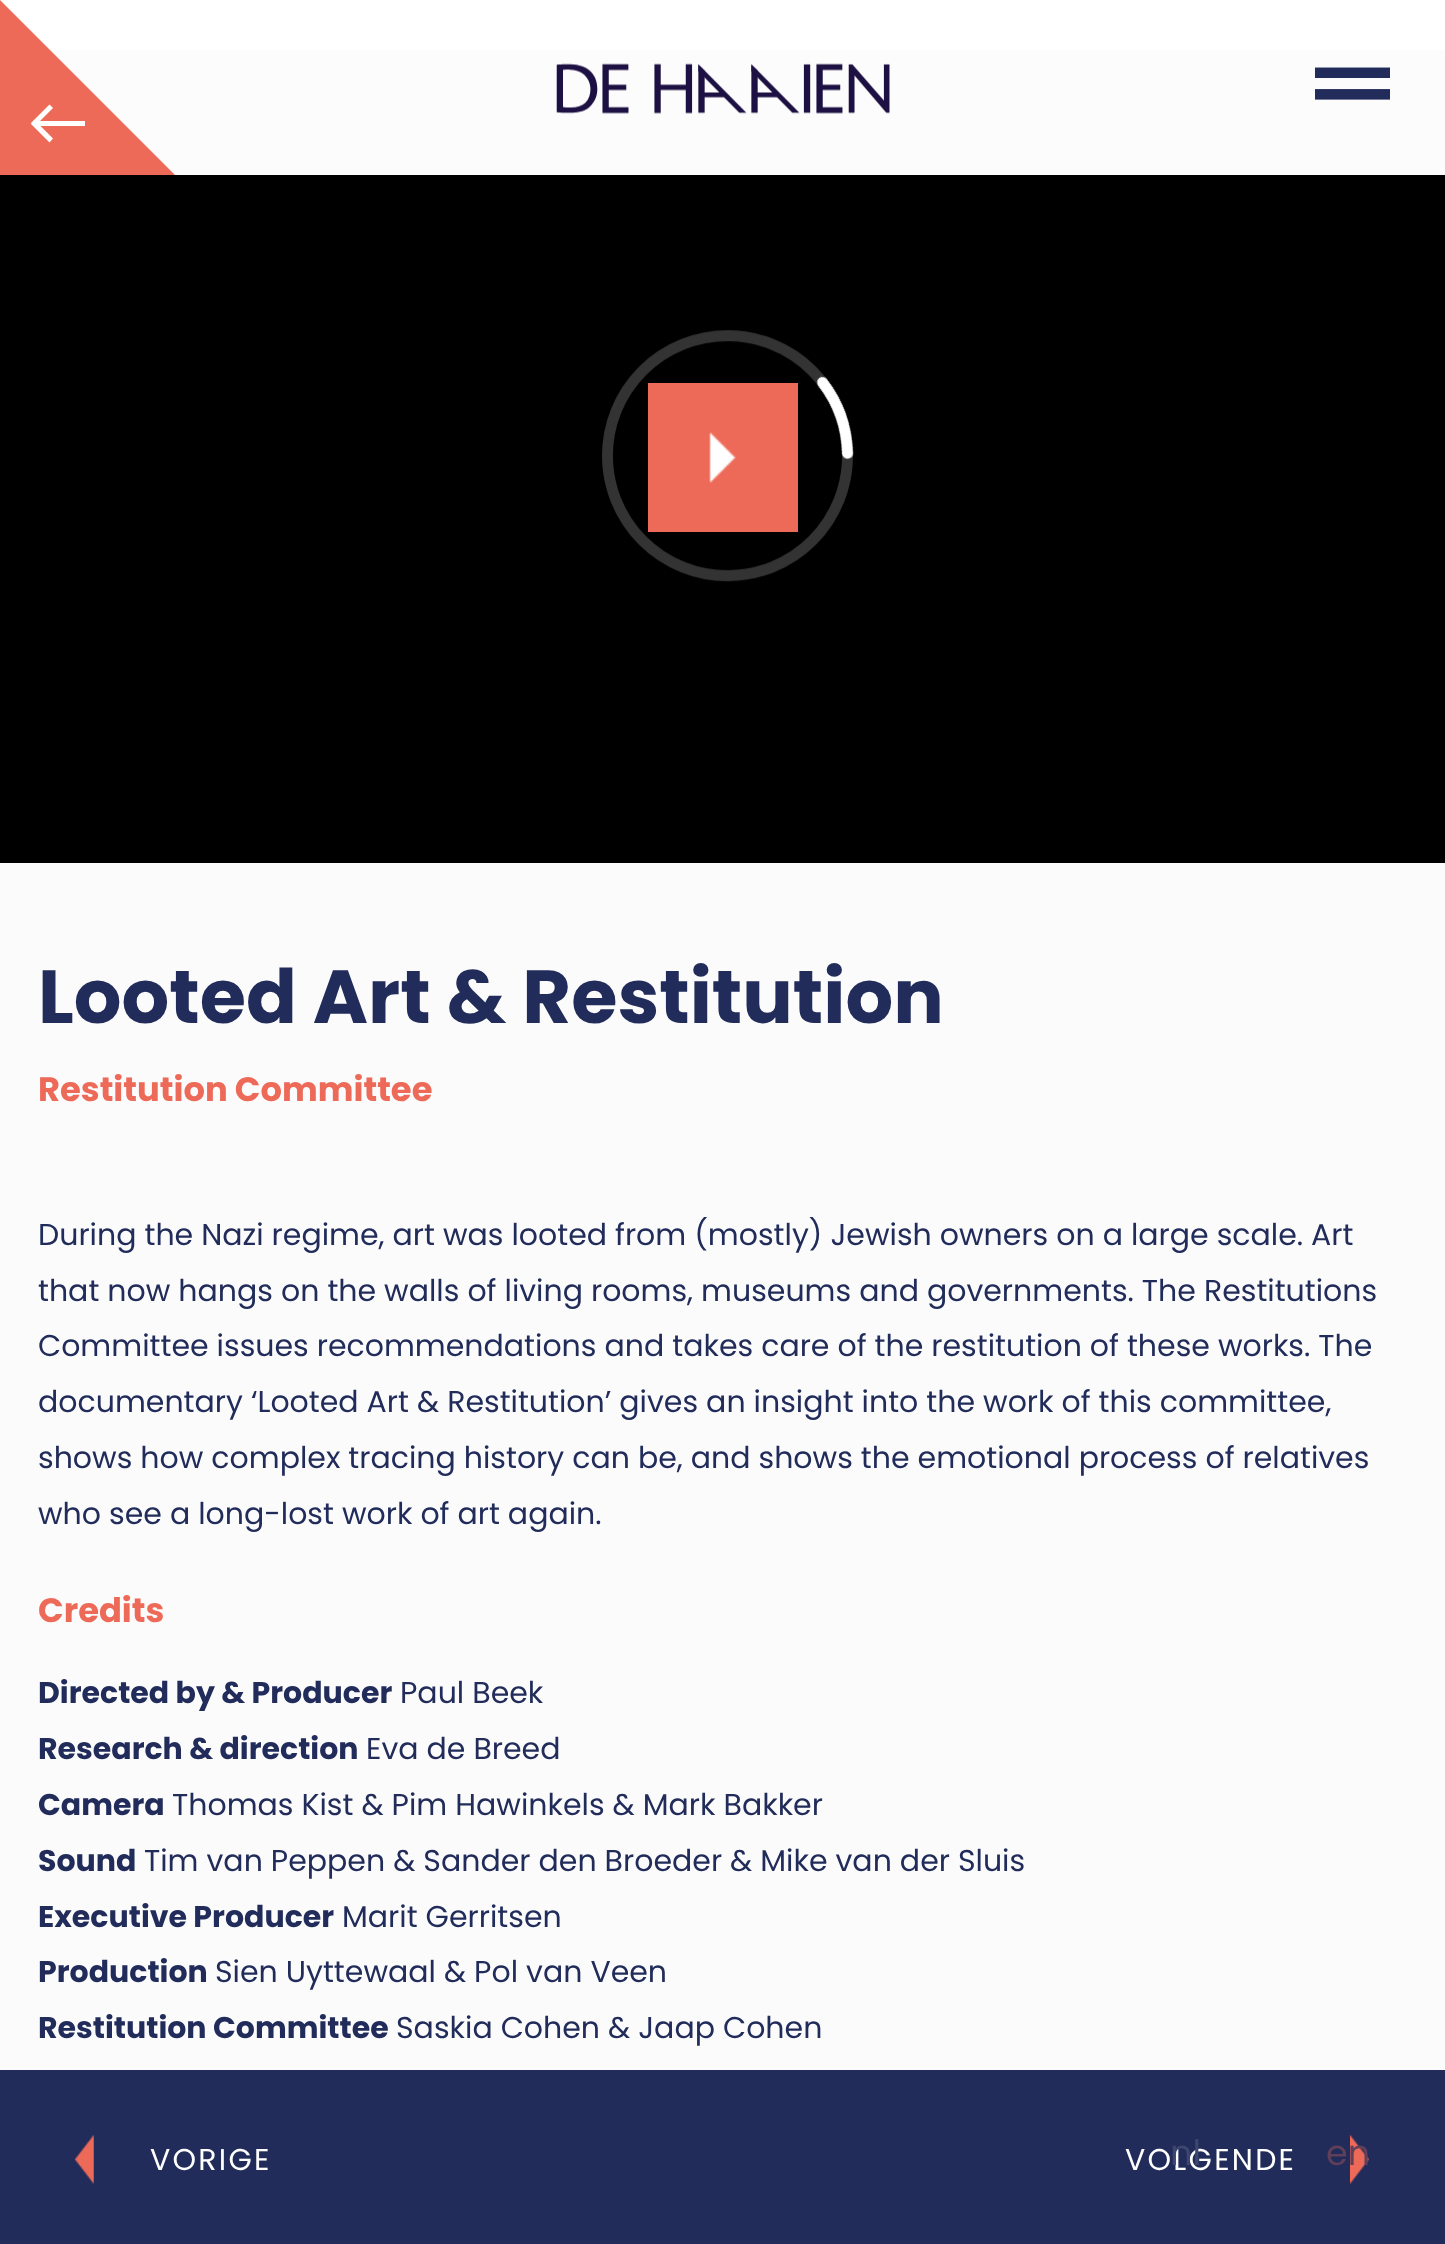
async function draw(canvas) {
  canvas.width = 1445
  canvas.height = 2244
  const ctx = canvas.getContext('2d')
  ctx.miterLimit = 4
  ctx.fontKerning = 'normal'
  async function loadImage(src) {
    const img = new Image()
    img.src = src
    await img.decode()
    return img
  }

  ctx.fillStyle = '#fff'
  ctx.fillRect(0, 0, 1445, 2244)
  ctx.fillStyle = '#fbfbfb'
  ctx.fillRect(0, 863, 1445, 1207)
  ctx.drawImage(await loadImage('image0.png'), 0, 50, 1445, 813)
  ctx.fillStyle = '#ee6a58'
  ctx.fillRect(648, 383, 150, 149)
  ctx.drawImage(await loadImage('image1.png'), 709, 432, 27, 51)
  ctx.font = 'bold 75px Poppins'
  ctx.fillStyle = '#212c5a'
  ctx.fillText('Looted Art & Restitution', 38, 1023)
  ctx.font = 'bold 33.75px Poppins'
  ctx.fillStyle = '#ee6a58'
  ctx.fillText('Restitution Committee', 38, 1101)
  ctx.font = '30px Poppins'
  ctx.fillStyle = '#212c5a'
  ctx.fillText('During the Nazi regime, art was looted from (mostly) Jewish owners on a large scale. Art', 38, 1245)
  ctx.fillText('that now hangs on the walls of living rooms, museums and governments. The Restitutions', 38, 1301)
  ctx.fillText('Committee issues recommendations and takes care of the restitution of these works. The', 38, 1356)
  ctx.fillText('documentary ‘Looted Art & Restitution’ gives an insight into the work of this committee,', 38, 1412)
  ctx.fillText('shows how complex tracing history can be, and shows the emotional process of relatives', 38, 1468)
  ctx.fillText('who see a long-lost work of art again.', 38, 1524)
  ctx.font = 'bold 33.75px Poppins'
  ctx.fillStyle = '#ee6a58'
  ctx.fillText('Credits', 38, 1622)
  ctx.font = 'bold 30px Poppins'
  ctx.fillStyle = '#212c5a'
  ctx.fillText('Directed by & Producer', 38, 1703)
  ctx.font = '30px Poppins'
  ctx.fillText('Paul Beek', 400, 1703)
  ctx.font = 'bold 30px Poppins'
  ctx.fillText('Research & direction', 38, 1759)
  ctx.font = '30px Poppins'
  ctx.fillText('Eva de Breed', 366, 1759)
  ctx.font = 'bold 30px Poppins'
  ctx.fillText('Camera', 38, 1815)
  ctx.font = '30px Poppins'
  ctx.fillText('Thomas Kist & Pim Hawinkels & Mark Bakker', 172, 1815)
  ctx.font = 'bold 30px Poppins'
  ctx.fillText('Sound', 38, 1871)
  ctx.font = '30px Poppins'
  ctx.fillText('Tim van Peppen & Sander den Broeder & Mike van der Sluis', 144, 1871)
  ctx.font = 'bold 30px Poppins'
  ctx.fillText('Executive Producer', 38, 1927)
  ctx.font = '30px Poppins'
  ctx.fillText('Marit Gerritsen', 342, 1927)
  ctx.font = 'bold 30px Poppins'
  ctx.fillText('Production', 38, 1982)
  ctx.font = '30px Poppins'
  ctx.fillText('Sien Uyttewaal & Pol van Veen', 215, 1982)
  ctx.font = 'bold 30px Poppins'
  ctx.fillText('Restitution Committee', 38, 2038)
  ctx.font = '30px Poppins'
  ctx.fillText('Saskia Cohen & Jaap Cohen', 396, 2038)
  ctx.fillStyle = '#fffffffc'
  ctx.fillRect(0, 50, 1445, 125)
  ctx.fillStyle = '#ee6a58'
  ctx.beginPath()
  ctx.moveTo(0, 175)
  ctx.lineTo(0, 0)
  ctx.lineTo(175, 175)
  ctx.closePath()
  ctx.fill()
  ctx.fillStyle = '#fff'
  ctx.fillRect(37, 121, 48, 5)
  ctx.beginPath()
  ctx.moveTo(49.5, 104.5)
  ctx.lineTo(31, 123)
  ctx.lineTo(34.5, 126.5)
  ctx.lineTo(53, 108)
  ctx.closePath()
  ctx.fill('evenodd')
  ctx.beginPath()
  ctx.moveTo(34.5, 120)
  ctx.lineTo(53, 138.5)
  ctx.lineTo(49.5, 142.5)
  ctx.lineTo(31, 124)
  ctx.closePath()
  ctx.fill('evenodd')
  ctx.drawImage(await loadImage('image2.png'), 556, 63, 334, 51)
  ctx.drawImage(await loadImage('image3.png'), 1315, 67, 75, 33)
  ctx.fillStyle = '#212c5a'
  ctx.fillRect(0, 2070, 1445, 174)
  ctx.letterSpacing = '2.25px'
  ctx.fillStyle = '#fff'
  ctx.fillText('VOLGENDE', 1125, 2170)
  ctx.letterSpacing = '0px'
  ctx.font = '35px Poppins'
  ctx.fillStyle = '#3c466e'
  ctx.fillText('nl', 1170, 2165)
  ctx.drawImage(await loadImage('image5.png'), 1350, 2135, 19, 49)
  ctx.fillStyle = '#5f3f59'
  ctx.fillText('en', 1326, 2165)
  ctx.drawImage(await loadImage('image4.png'), 75, 2135, 19, 49)
  ctx.letterSpacing = '2.25px'
  ctx.font = '30px Poppins'
  ctx.fillStyle = '#fff'
  ctx.fillText('VORIGE', 150, 2170)
}

draw(document.querySelector('canvas'))
